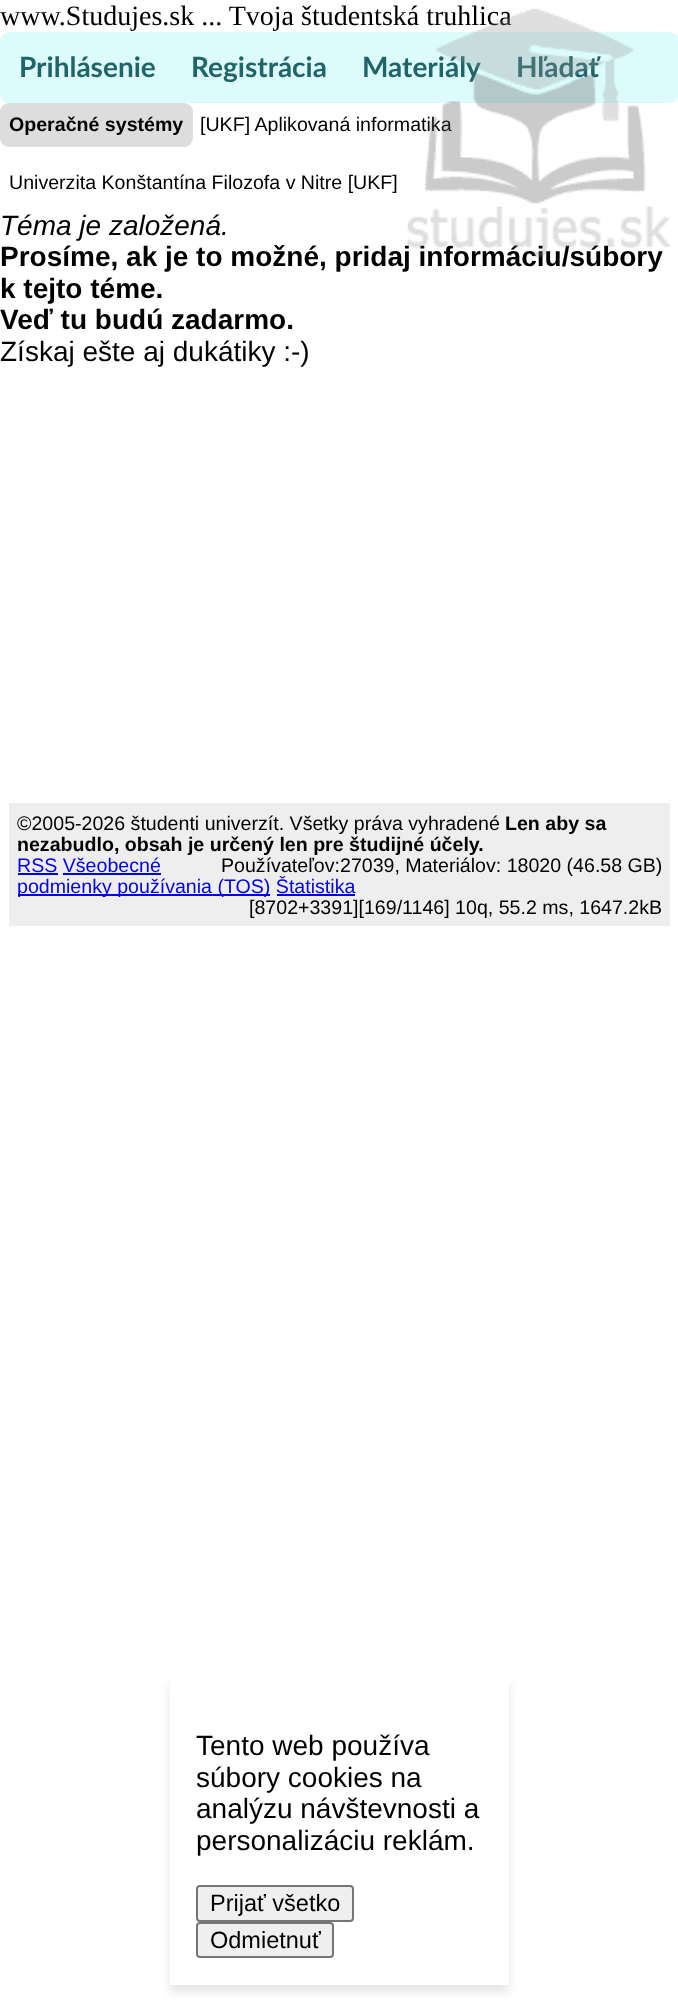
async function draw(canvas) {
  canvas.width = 678
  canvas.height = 2002
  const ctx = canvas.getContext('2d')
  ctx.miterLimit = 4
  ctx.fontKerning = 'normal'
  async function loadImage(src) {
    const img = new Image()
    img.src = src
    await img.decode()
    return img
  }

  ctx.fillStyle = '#fff'
  ctx.fillRect(0, 0, 678, 2002)
  ctx.font = '28px Liberation Serif'
  ctx.fillStyle = '#000'
  ctx.fillText('www.Studujes.sk ... Tvoja študentská truhlica', 0, 25)
  ctx.fillStyle = '#ddfbfd'
  ctx.beginPath()
  ctx.roundRect(0, 32, 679, 71, 9)
  ctx.fill()
  ctx.font = 'bold 28px Lato'
  ctx.fillStyle = '#1e6468'
  ctx.fillText('Materiály', 362, 77)
  ctx.fillText('Hľadať', 516, 77)
  ctx.font = '19.6px Liberation Sans'
  ctx.fillStyle = '#000'
  ctx.fillText('[UKF] Aplikovaná informatika', 200, 131)
  ctx.font = 'bold 28px Liberation Sans'
  ctx.fillText('Prosíme, ak je to možné, pridaj informáciu/súbory', 0, 266)
  ctx.drawImage(await loadImage('image0.png'), 407, 8, 264, 250)
  ctx.font = 'bold 28px Lato'
  ctx.fillStyle = '#1e6468'
  ctx.fillText('Prihlásenie', 19, 77)
  ctx.fillText('Registrácia', 191, 77)
  ctx.fillStyle = '#ddd'
  ctx.beginPath()
  ctx.roundRect(0, 103, 193, 44, 9)
  ctx.fill()
  ctx.font = 'bold 19.6px Liberation Sans'
  ctx.fillStyle = '#000'
  ctx.fillText('Operačné systémy', 9, 131)
  ctx.font = '19.6px Liberation Sans'
  ctx.fillText('Univerzita Konštantína Filozofa v Nitre [UKF]', 9, 189)
  ctx.font = 'italic 28px Liberation Sans'
  ctx.fillText('Téma je založená.', 0, 235)
  ctx.font = 'bold 28px Liberation Sans'
  ctx.fillText('k tejto téme.', 0, 298)
  ctx.fillText('Veď tu budú zadarmo.', 0, 329)
  ctx.font = '28px Liberation Sans'
  ctx.fillText('Získaj ešte aj dukátiky :-)', 0, 361)
  ctx.fillStyle = '#eee'
  ctx.fillRect(9, 803, 661, 123)
  ctx.font = '19.6px Liberation Sans'
  ctx.fillStyle = '#000'
  ctx.fillText('©2005-2026 študenti univerzít. Všetky práva vyhradené', 17, 830)
  ctx.font = 'bold 19.6px Liberation Sans'
  ctx.fillText('Len aby sa', 505, 830)
  ctx.fillText('nezabudlo, obsah je určený len pre študijné účely.', 17, 851)
  ctx.font = '19.6px Liberation Sans'
  ctx.fillStyle = '#00e'
  ctx.fillText('RSS Všeobecné', 17, 872)
  ctx.fillRect(18, 873, 40, 2)
  ctx.fillStyle = '#000'
  ctx.fillText('Používateľov:27039, Materiálov: 18020 (46.58 GB)', 221, 872)
  ctx.fillStyle = '#00e'
  ctx.fillRect(18, 894, 252, 2)
  ctx.fillText('podmienky používania (TOS) Štatistika', 17, 893)
  ctx.fillRect(63, 873, 98, 2)
  ctx.fillRect(277, 894, 78, 2)
  ctx.fillStyle = '#000'
  ctx.fillText('[8702+3391][169/1146] 10q, 55.2 ms, 1647.2kB', 249, 914)
  ctx.fillStyle = '#0000001a'
  ctx.filter = 'blur(5px)'
  ctx.beginPath()
  ctx.rect(170, 1684, 339, 308)
  ctx.fill()
  ctx.filter = 'none'
  ctx.fillStyle = '#fff'
  ctx.fillRect(170, 1678, 339, 307)
  ctx.font = '28px Liberation Sans'
  ctx.fillStyle = '#000'
  ctx.fillText('Tento web používa', 196, 1755)
  ctx.fillText('súbory cookies na', 196, 1787)
  ctx.fillText('analýzu návštevnosti a', 196, 1818)
  ctx.fillText('personalizáciu reklám.', 196, 1850)
  ctx.fillStyle = '#efefef'
  ctx.beginPath()
  ctx.roundRect(197, 1886, 156, 35, 3)
  ctx.fill()
  ctx.strokeStyle = '#767676'
  ctx.lineWidth = 2
  ctx.stroke()
  ctx.font = '23.5px Liberation Sans'
  ctx.fillStyle = '#000'
  ctx.fillText('Prijať všetko', 210, 1911)
  ctx.fillStyle = '#efefef'
  ctx.beginPath()
  ctx.roundRect(197, 1923, 136, 34, 3)
  ctx.fill()
  ctx.stroke()
  ctx.fillStyle = '#000'
  ctx.fillText('Odmietnuť', 210, 1948)
}

draw(document.querySelector('canvas'))
